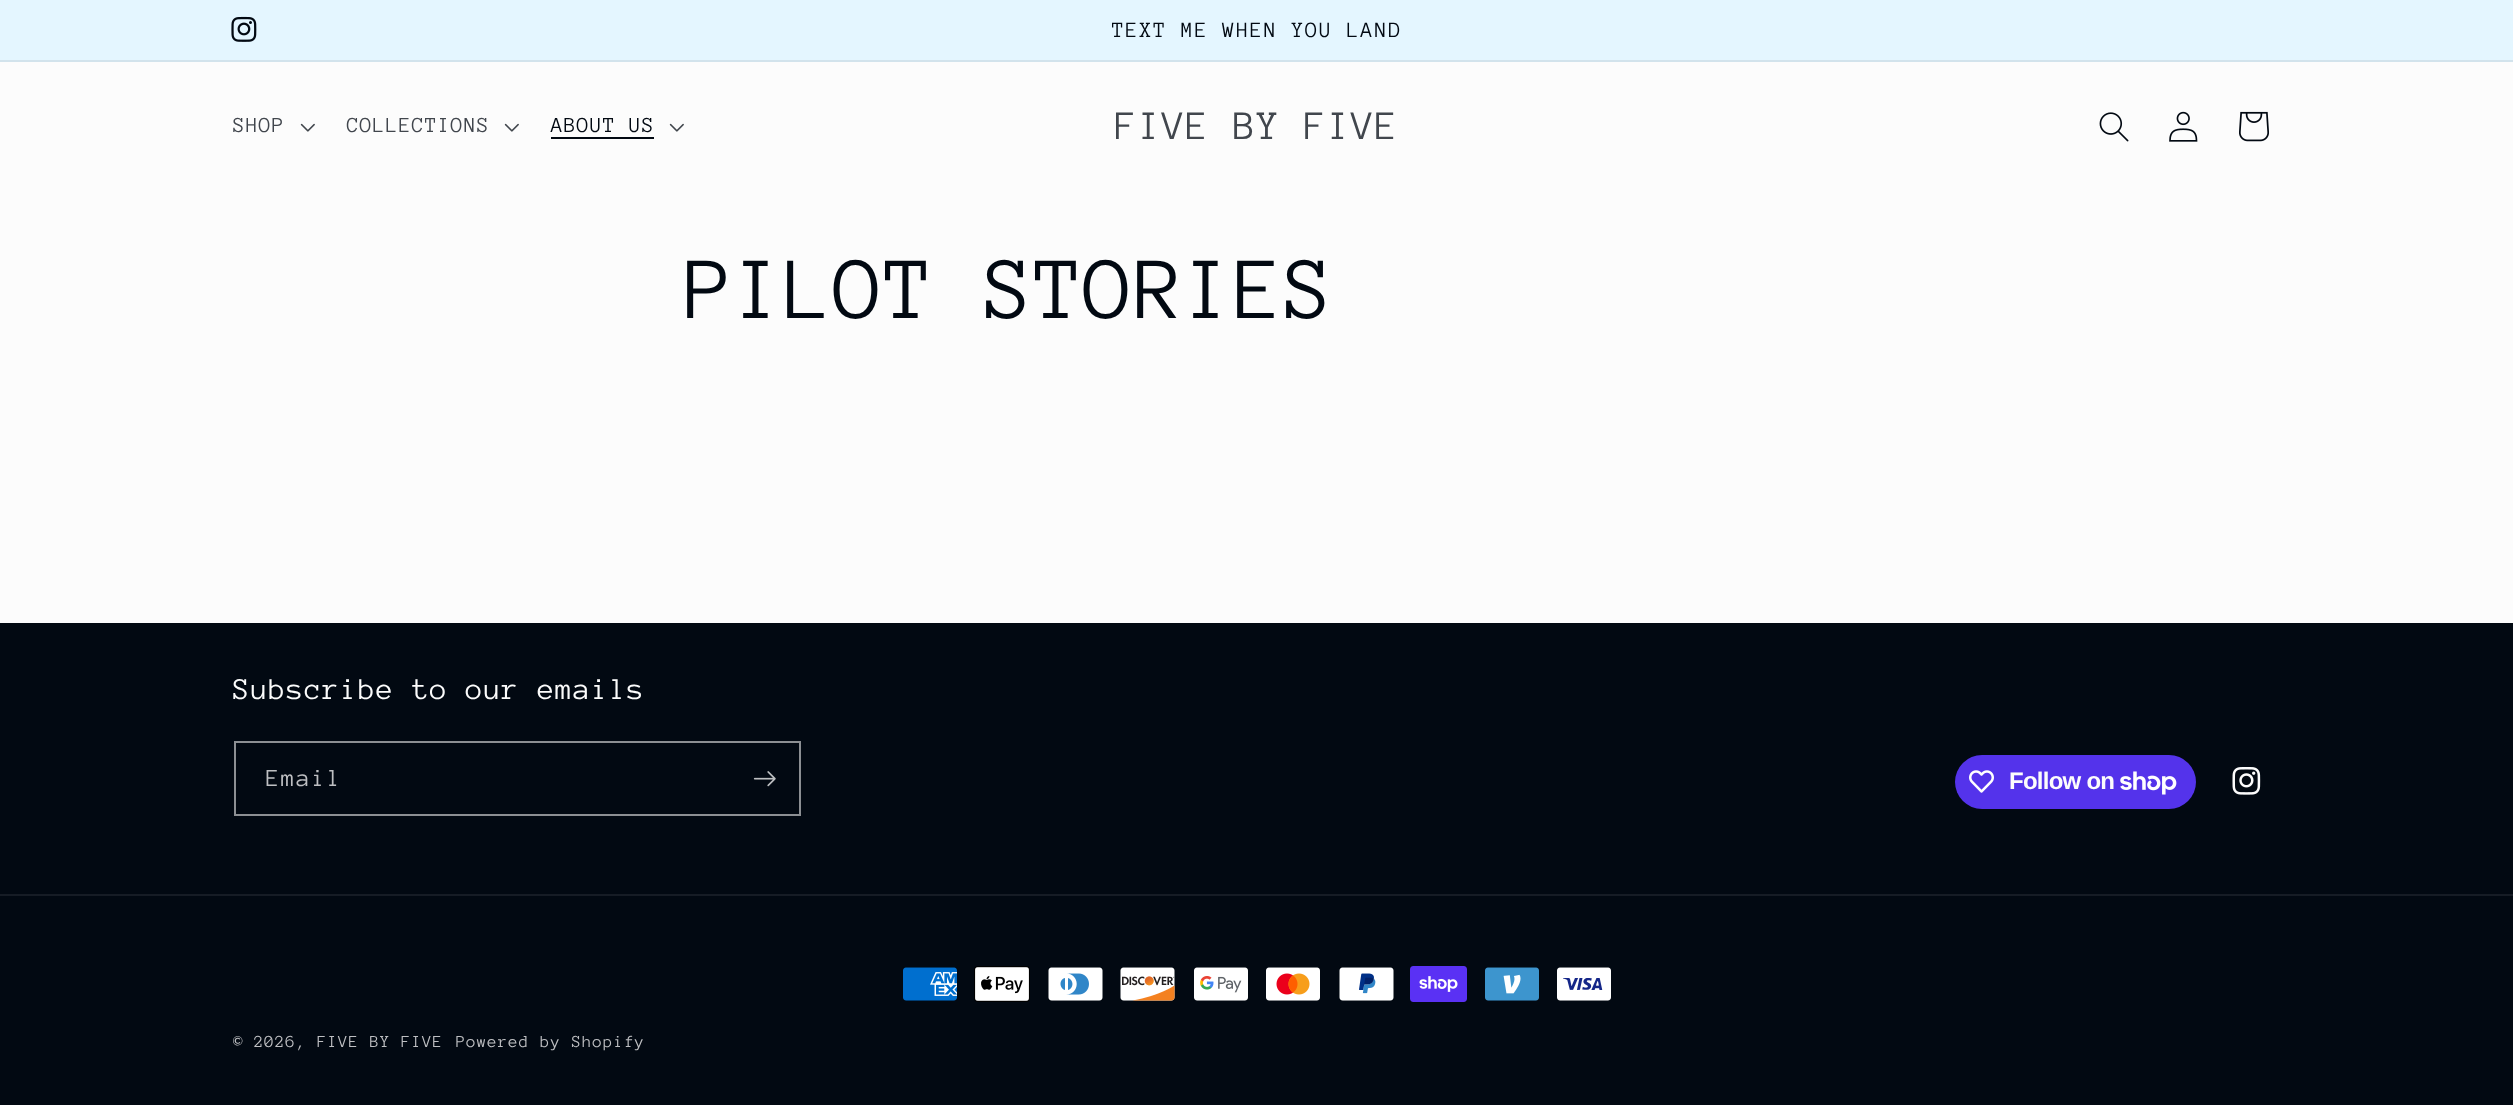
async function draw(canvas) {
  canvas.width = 2513
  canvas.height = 1105
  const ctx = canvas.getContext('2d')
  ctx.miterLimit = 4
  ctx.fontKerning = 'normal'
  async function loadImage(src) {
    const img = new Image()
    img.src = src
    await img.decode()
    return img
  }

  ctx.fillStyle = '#fcfcfc'
  ctx.fillRect(0, 0, 2513, 1105)
  ctx.fillStyle = '#e4f6ff'
  ctx.fillRect(0, 0, 2513, 60)
  ctx.fillStyle = '#d2e3ec'
  ctx.fillRect(0, 60, 2513, 2)
  ctx.drawImage(await loadImage('image0.png'), 231, 16, 26, 26)
  ctx.letterSpacing = '1.6px'
  ctx.font = '22.4px Anonymous Pro'
  ctx.fillStyle = '#020912'
  ctx.fillText('TEXT ME WHEN YOU LAND', 1112, 37)
  ctx.letterSpacing = '1px'
  ctx.font = '22px Anonymous Pro'
  ctx.fillStyle = '#41464d'
  ctx.fillText('SHOP', 233, 132)
  ctx.drawImage(await loadImage('image1.png'), 300, 123, 15, 9)
  ctx.fillText('COLLECTIONS', 347, 132)
  ctx.drawImage(await loadImage('image1.png'), 504, 123, 15, 9)
  ctx.fillStyle = '#020912'
  ctx.fillText('ABOUT US', 551, 132)
  ctx.fillRect(551, 137, 103, 2)
  ctx.drawImage(await loadImage('image1.png'), 669, 123, 15, 9)
  ctx.font = '41.5px Anonymous Pro'
  ctx.fillStyle = '#41464d'
  ctx.fillText('FIVE BY FIVE', 1115, 139)
  ctx.drawImage(await loadImage('image2.png'), 2099, 112, 30, 30)
  ctx.drawImage(await loadImage('image3.png'), 2169, 111, 29, 31)
  ctx.drawImage(await loadImage('image4.png'), 2239, 111, 30, 31)
  ctx.font = '89.75px Anonymous Pro'
  ctx.fillStyle = '#020912'
  ctx.fillText('PILOT STORIES', 685, 318)
  ctx.fillRect(0, 623, 2513, 482)
  ctx.font = '31px Anonymous Pro'
  ctx.fillStyle = '#fcfcfc'
  ctx.fillText('Subscribe to our emails', 233, 699)
  ctx.strokeStyle = '#8c8f93'
  ctx.lineWidth = 2
  ctx.strokeRect(235, 742, 565, 73)
  ctx.letterSpacing = '1.6px'
  ctx.font = '25px Anonymous Pro'
  ctx.fillStyle = '#bebfc2'
  ctx.fillText('Email', 266, 786)
  ctx.drawImage(await loadImage('image5.png'), 753, 771, 23, 16)
  ctx.fillStyle = '#5433eb'
  ctx.beginPath()
  ctx.roundRect(1955, 755, 241, 54, 27)
  ctx.fill()
  ctx.drawImage(await loadImage('image6.png'), 1969, 770, 25, 23)
  ctx.letterSpacing = '-0.75px'
  ctx.font = 'bold 24px Liberation Sans'
  ctx.fillStyle = '#fcfcfc'
  ctx.fillText('Follow on', 2009, 789)
  ctx.drawImage(await loadImage('image7.png'), 2120, 771, 57, 24)
  ctx.drawImage(await loadImage('image8.png'), 2232, 767, 29, 28)
  ctx.fillStyle = '#161c25'
  ctx.fillRect(0, 894, 2513, 2)
  ctx.drawImage(await loadImage('image9.png'), 903, 967, 54, 34)
  ctx.drawImage(await loadImage('image10.png'), 974, 966, 56, 36)
  ctx.drawImage(await loadImage('image11.png'), 1048, 967, 55, 34)
  ctx.drawImage(await loadImage('image12.png'), 1120, 967, 55, 34)
  ctx.drawImage(await loadImage('image13.png'), 1194, 967, 54, 34)
  ctx.drawImage(await loadImage('image14.png'), 1266, 967, 54, 34)
  ctx.drawImage(await loadImage('image15.png'), 1339, 967, 55, 34)
  ctx.drawImage(await loadImage('image16.png'), 1410, 966, 57, 36)
  ctx.drawImage(await loadImage('image17.png'), 1485, 967, 54, 34)
  ctx.drawImage(await loadImage('image18.png'), 1557, 967, 54, 34)
  ctx.letterSpacing = '1.1px'
  ctx.font = '17.25px Anonymous Pro'
  ctx.fillStyle = '#bebfc2'
  ctx.fillText('© 2026, FIVE BY FIVE', 233, 1047)
  ctx.fillText('Powered by Shopify', 456, 1047)
}

draw(document.querySelector('canvas'))
